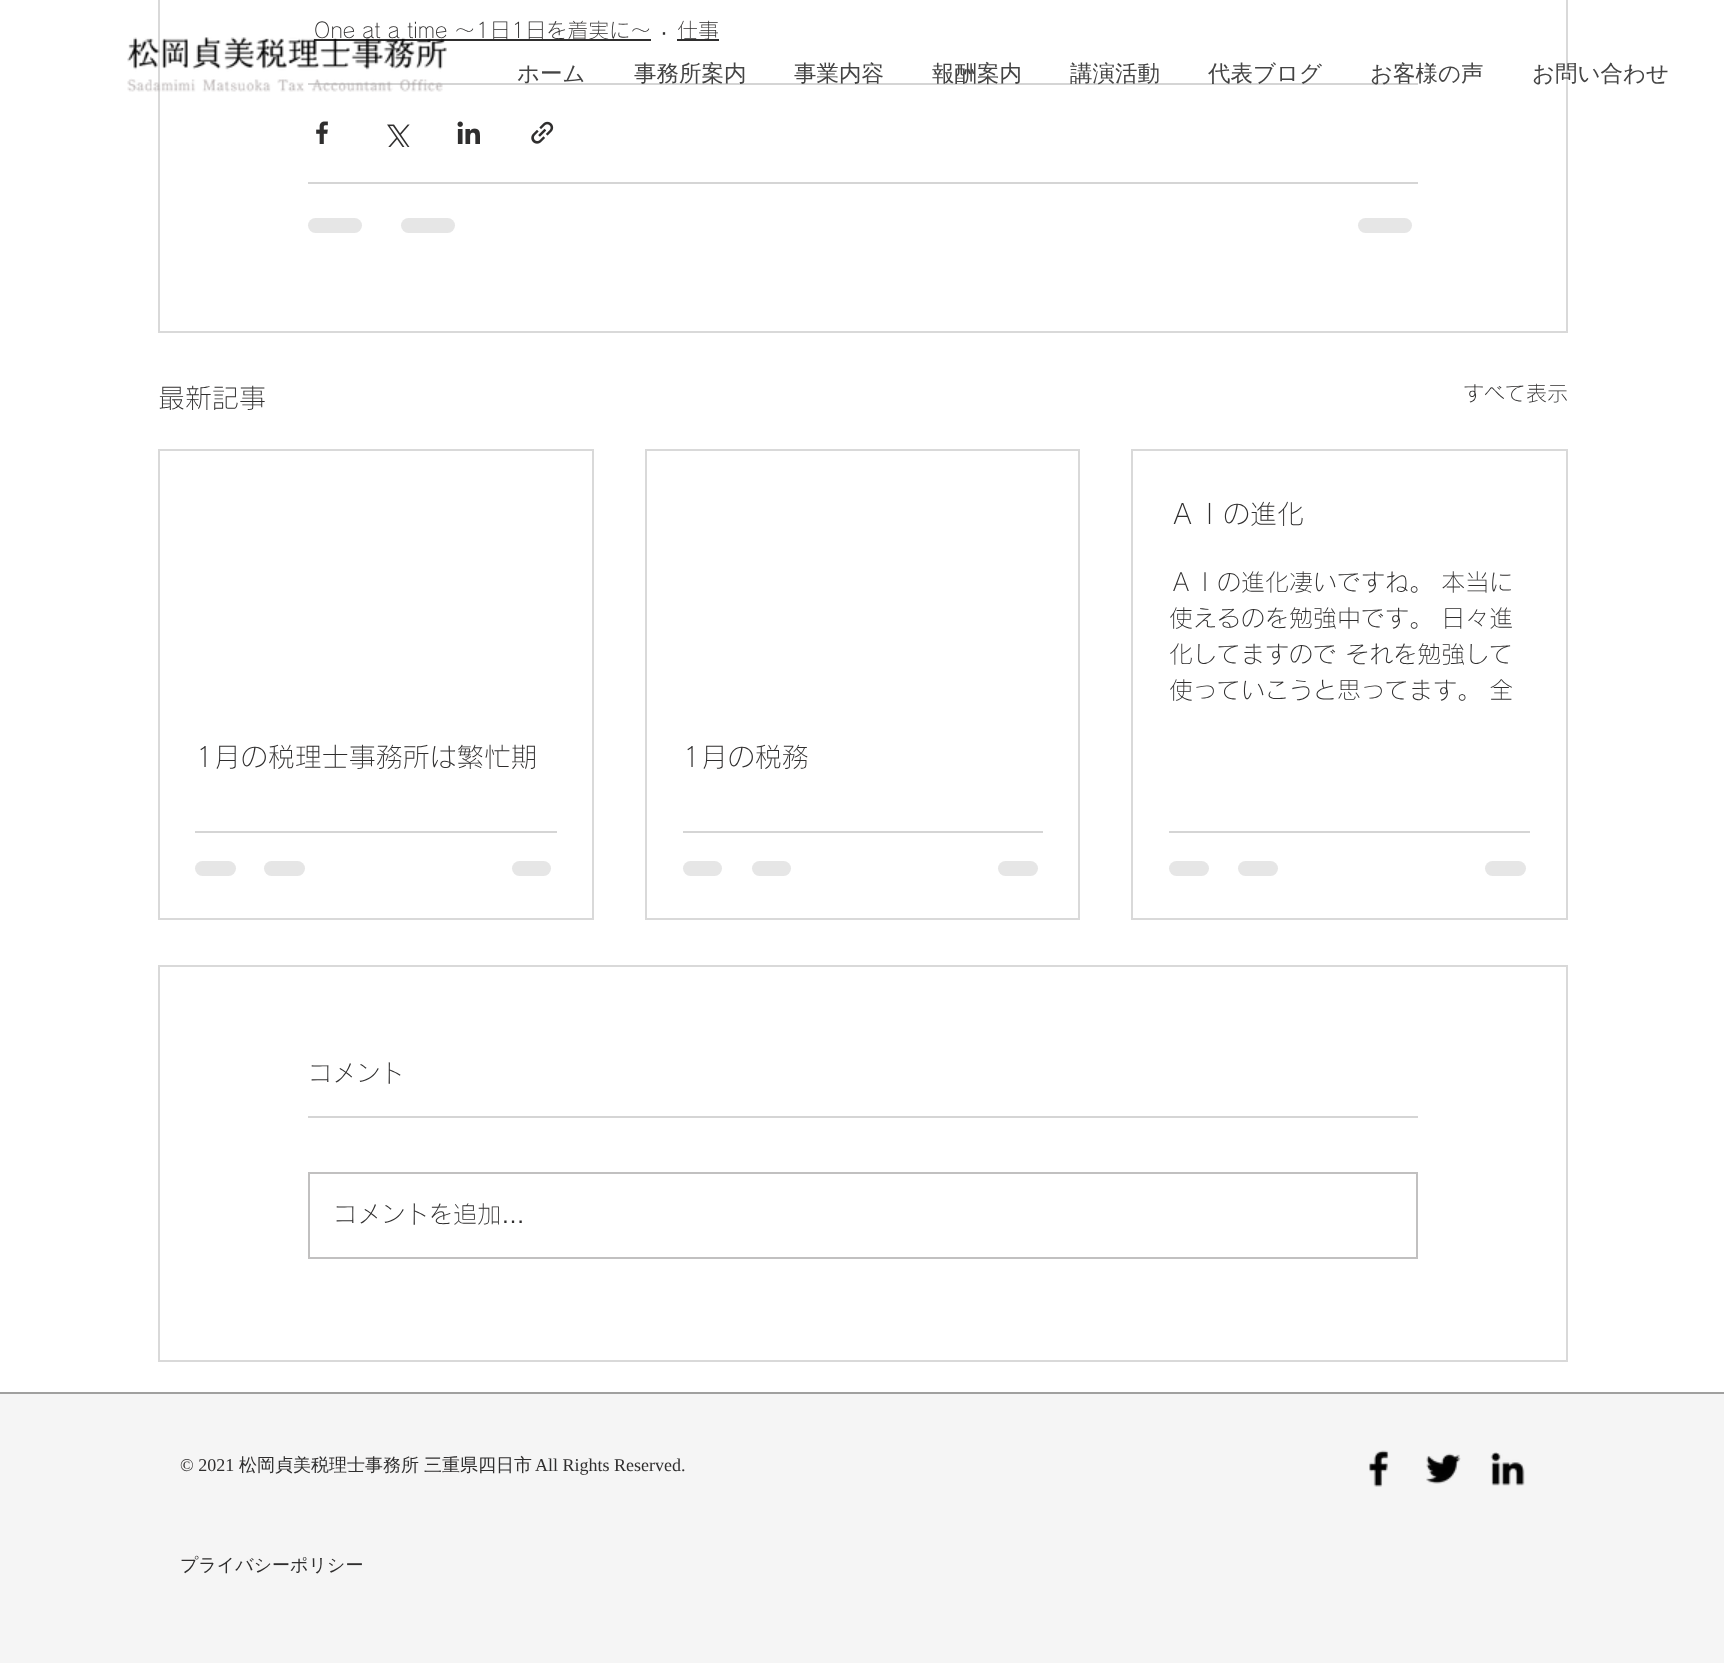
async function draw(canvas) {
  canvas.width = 1724
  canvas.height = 1663
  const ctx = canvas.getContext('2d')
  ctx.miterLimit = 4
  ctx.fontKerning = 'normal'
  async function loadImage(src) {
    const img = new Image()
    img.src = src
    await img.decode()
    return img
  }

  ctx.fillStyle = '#fff'
  ctx.fillRect(0, 0, 1724, 1663)
  ctx.strokeStyle = '#d9d9d9'
  ctx.lineWidth = 2
  ctx.strokeRect(159, -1, 1408, 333)
  ctx.fillStyle = '#2f2e2e'
  ctx.fillRect(314, 39, 337, 2)
  ctx.font = '300 21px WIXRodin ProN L'
  ctx.fillText('One at a time ～1日1日を着実に～', 314, 38)
  ctx.font = '24px Liberation Sans'
  ctx.fillText('·', 660, 40)
  ctx.fillRect(677, 39, 42, 2)
  ctx.font = '300 21px WIXRodin ProN L'
  ctx.fillText('仕事', 677, 38)
  ctx.fillStyle = '#d5d5d5'
  ctx.fillRect(308, 83, 1110, 2)
  ctx.drawImage(await loadImage('image0.png'), 316, 121, 12, 23)
  ctx.drawImage(await loadImage('image1.png'), 387, 124, 23, 23)
  ctx.drawImage(await loadImage('image2.png'), 457, 121, 23, 23)
  ctx.drawImage(await loadImage('image3.png'), 531, 121, 23, 23)
  ctx.fillRect(308, 182, 1110, 2)
  ctx.fillStyle = '#e6e6e6'
  ctx.beginPath()
  ctx.roundRect(308, 218, 54, 15, 7.5)
  ctx.fill()
  ctx.beginPath()
  ctx.roundRect(401, 218, 54, 15, 7.5)
  ctx.fill()
  ctx.beginPath()
  ctx.roundRect(1358, 218, 54, 15, 7.5)
  ctx.fill()
  ctx.font = '300 27px WIXRodin ProN L'
  ctx.fillStyle = '#2f2e2e'
  ctx.fillText('最新記事', 158, 408)
  ctx.font = '300 21px WIXRodin ProN L'
  ctx.fillText('すべて表示', 1463, 401)
  ctx.strokeRect(1132, 450, 435, 469)
  ctx.font = '300 27px WIXRodin ProN L'
  ctx.fillText('ＡＩの進化', 1169, 524)
  ctx.font = '300 24px WIXRodin ProN L'
  ctx.fillText('ＡＩの進化凄いですね。 本当に', 1169, 591)
  ctx.fillText('使えるのを勉強中です。 日々進', 1169, 627)
  ctx.fillText('化してますので それを勉強して', 1169, 663)
  ctx.fillText('使っていこうと思ってます。 全', 1169, 699)
  ctx.fillStyle = '#d5d5d5'
  ctx.fillRect(1169, 831, 361, 2)
  ctx.fillStyle = '#e6e6e6'
  ctx.beginPath()
  ctx.roundRect(1169, 861, 40, 15, 7.5)
  ctx.fill()
  ctx.beginPath()
  ctx.roundRect(1238, 861, 40, 15, 7.5)
  ctx.fill()
  ctx.beginPath()
  ctx.roundRect(1485, 861, 41, 15, 7.5)
  ctx.fill()
  ctx.strokeRect(159, 450, 434, 469)
  ctx.font = '300 27px WIXRodin ProN L'
  ctx.fillStyle = '#2f2e2e'
  ctx.fillText('1月の税理士事務所は繁忙期', 195, 767)
  ctx.fillStyle = '#d5d5d5'
  ctx.fillRect(195, 831, 362, 2)
  ctx.fillStyle = '#e6e6e6'
  ctx.beginPath()
  ctx.roundRect(195, 861, 41, 15, 7.5)
  ctx.fill()
  ctx.beginPath()
  ctx.roundRect(264, 861, 41, 15, 7.5)
  ctx.fill()
  ctx.beginPath()
  ctx.roundRect(512, 861, 39, 15, 7.5)
  ctx.fill()
  ctx.strokeRect(646, 450, 433, 469)
  ctx.fillStyle = '#2f2e2e'
  ctx.fillText('1月の税務', 682, 767)
  ctx.fillStyle = '#d5d5d5'
  ctx.fillRect(683, 831, 360, 2)
  ctx.fillStyle = '#e6e6e6'
  ctx.beginPath()
  ctx.roundRect(683, 861, 39, 15, 7.5)
  ctx.fill()
  ctx.beginPath()
  ctx.roundRect(752, 861, 39, 15, 7.5)
  ctx.fill()
  ctx.beginPath()
  ctx.roundRect(998, 861, 40, 15, 7.5)
  ctx.fill()
  ctx.strokeRect(159, 966, 1408, 395)
  ctx.font = '300 24px WIXRodin ProN L'
  ctx.fillStyle = '#2f2e2e'
  ctx.fillText('コメント', 308, 1082)
  ctx.fillStyle = '#d5d5d5'
  ctx.fillRect(308, 1116, 1110, 2)
  ctx.strokeStyle = '#c1c0c0'
  ctx.strokeRect(309, 1173, 1108, 85)
  ctx.fillStyle = '#2f2e2e'
  ctx.fillText('コメントを追加', 333, 1223)
  ctx.font = '24px Liberation Sans'
  ctx.fillText('…', 501, 1223)
  ctx.drawImage(await loadImage('image4.png'), 127, 37, 320, 55)
  ctx.font = '500 22.5px WenQuanYi Zen Hei'
  ctx.fillStyle = '#444'
  ctx.fillText('ホーム', 517, 81)
  ctx.fillText('事務所案内', 634, 81)
  ctx.fillText('事業内容', 794, 81)
  ctx.fillText('報酬案内', 932, 81)
  ctx.fillText('講演活動', 1070, 81)
  ctx.fillText('代表ブログ', 1208, 81)
  ctx.fillText('お客様の声', 1370, 81)
  ctx.fillText('お問い合わせ', 1532, 81)
  ctx.fillStyle = '#f5f5f5'
  ctx.fillRect(0, 1394, 1724, 269)
  ctx.fillStyle = '#a0a09f'
  ctx.fillRect(0, 1392, 1724, 2)
  ctx.font = '18px Liberation Serif'
  ctx.fillStyle = '#2f2e2e'
  ctx.fillText('© 2021', 180, 1471)
  ctx.font = '500 18px WenQuanYi Zen Hei'
  ctx.fillText('松岡貞美税理士事務所', 239, 1471)
  ctx.fillText('三重県四日市', 424, 1471)
  ctx.font = '18px Liberation Serif'
  ctx.fillText('All Rights Reserved.', 535, 1471)
  ctx.drawImage(await loadImage('image5.png'), 1369, 1450, 20, 37)
  ctx.drawImage(await loadImage('image6.png'), 1426, 1453, 35, 31)
  ctx.drawImage(await loadImage('image7.png'), 1490, 1452, 35, 34)
  ctx.font = '500 18px WenQuanYi Zen Hei'
  ctx.fillText('プライバシーポリシー', 180, 1571)
}

draw(document.querySelector('canvas'))
